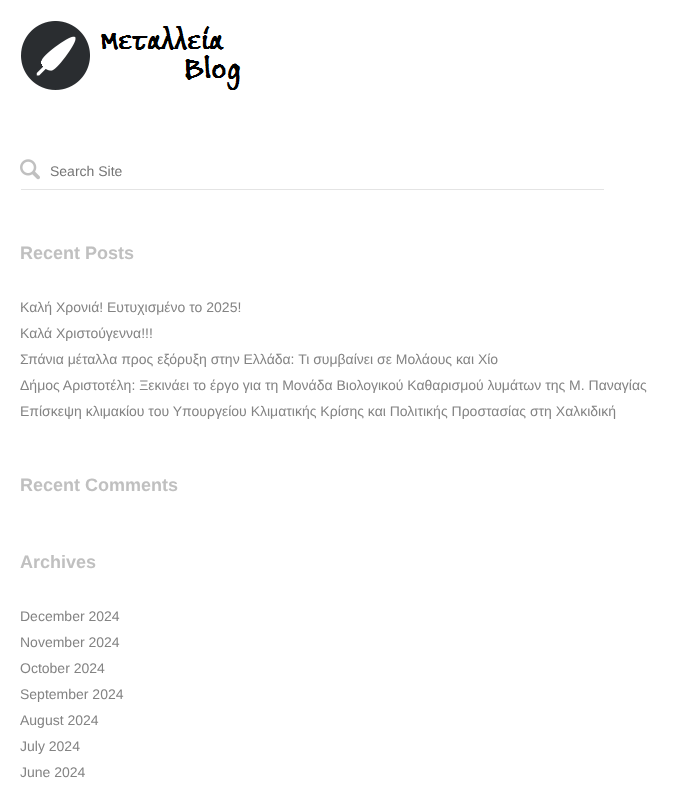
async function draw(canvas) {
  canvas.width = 690
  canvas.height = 799
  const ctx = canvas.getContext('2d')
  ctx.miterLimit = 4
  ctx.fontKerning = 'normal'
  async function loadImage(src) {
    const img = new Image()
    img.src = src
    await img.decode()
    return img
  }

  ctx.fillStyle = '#fff'
  ctx.fillRect(0, 0, 690, 799)
  ctx.drawImage(await loadImage('image0.png'), 21, 21, 220, 69)
  ctx.drawImage(await loadImage('image1.png'), 20, 159, 20, 21)
  ctx.fillStyle = '#e4e4e4'
  ctx.fillRect(21, 189, 583, 1)
  ctx.font = '14px Liberation Sans'
  ctx.fillStyle = '#757575'
  ctx.fillText('Search Site', 50, 176)
  ctx.font = 'bold 18px Liberation Sans'
  ctx.fillStyle = '#c0c0c0'
  ctx.fillText('Recent Posts', 20, 259)
  ctx.font = '14px Liberation Sans'
  ctx.fillStyle = '#838383'
  ctx.fillText('Καλή Χρονιά! Ευτυχισμένο το 2025!', 20, 312)
  ctx.fillText('Καλά Χριστούγεννα!!!', 20, 338)
  ctx.fillText('Σπάνια μέταλλα προς εξόρυξη στην Ελλάδα: Τι συμβαίνει σε Μολάους και Χίο', 20, 364)
  ctx.fillText('Δήμος Αριστοτέλη: Ξεκινάει το έργο για τη Μονάδα Βιολογικού Καθαρισμού λυμάτων της Μ. Παναγίας', 20, 390)
  ctx.fillText('Επίσκεψη κλιμακίου του Υπουργείου Κλιματικής Κρίσης και Πολιτικής Προστασίας στη Χαλκιδική', 20, 416)
  ctx.font = 'bold 18px Liberation Sans'
  ctx.fillStyle = '#c0c0c0'
  ctx.fillText('Recent Comments', 20, 491)
  ctx.fillText('Archives', 20, 568)
  ctx.font = '14px Liberation Sans'
  ctx.fillStyle = '#838383'
  ctx.fillText('December 2024', 20, 621)
  ctx.fillText('November 2024', 20, 647)
  ctx.fillText('October 2024', 20, 673)
  ctx.fillText('September 2024', 20, 699)
  ctx.fillText('August 2024', 20, 725)
  ctx.fillText('July 2024', 20, 751)
  ctx.fillText('June 2024', 20, 777)
}

draw(document.querySelector('canvas'))
